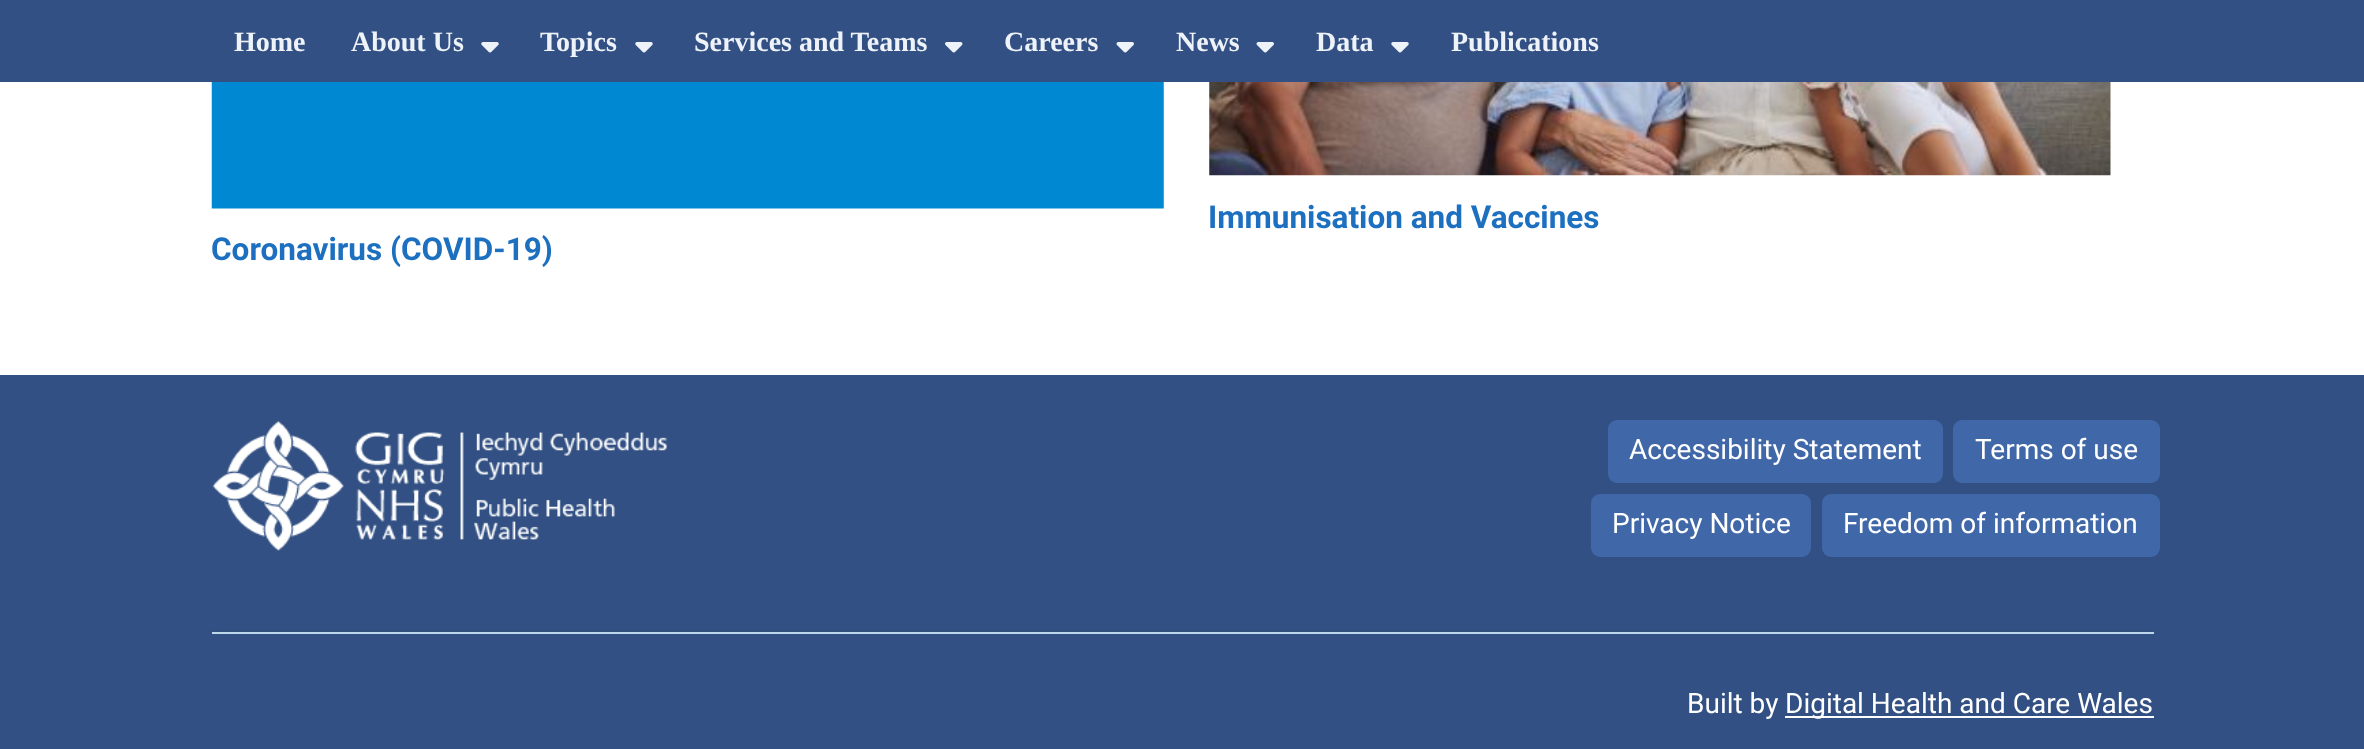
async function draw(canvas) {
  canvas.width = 2364
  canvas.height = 749
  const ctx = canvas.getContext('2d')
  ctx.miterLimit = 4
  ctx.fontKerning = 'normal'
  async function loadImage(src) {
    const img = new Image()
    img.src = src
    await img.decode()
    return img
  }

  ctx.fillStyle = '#fff'
  ctx.fillRect(0, 0, 2364, 749)
  ctx.fillStyle = '#325083'
  ctx.fillRect(0, 0, 2364, 82)
  ctx.font = 'bold 28px Liberation Serif'
  ctx.fillStyle = '#eef2f9'
  ctx.fillText('Home', 234, 51)
  ctx.fillText('About Us', 351, 51)
  ctx.drawImage(await loadImage('image0.png'), 481, 42, 18, 11)
  ctx.fillText('Topics', 540, 51)
  ctx.drawImage(await loadImage('image0.png'), 635, 42, 18, 11)
  ctx.fillText('Services and Teams', 694, 51)
  ctx.drawImage(await loadImage('image1.png'), 945, 42, 18, 11)
  ctx.fillText('Careers', 1004, 51)
  ctx.drawImage(await loadImage('image2.png'), 1116, 42, 18, 11)
  ctx.fillText('News', 1176, 51)
  ctx.drawImage(await loadImage('image2.png'), 1256, 42, 18, 11)
  ctx.fillText('Data', 1316, 51)
  ctx.drawImage(await loadImage('image0.png'), 1391, 42, 18, 11)
  ctx.fillText('Publications', 1451, 51)
  ctx.drawImage(await loadImage('image3.png'), 1209, 82, 902, 94)
  ctx.font = 'bold 31.5px Roboto'
  ctx.fillStyle = '#1d70c0'
  ctx.fillText('Immunisation and Vaccines', 1208, 228)
  ctx.drawImage(await loadImage('image4.png'), 211, 82, 953, 127)
  ctx.fillText('Coronavirus (COVID-19)', 211, 260)
  ctx.fillStyle = '#325083'
  ctx.fillRect(0, 375, 2364, 374)
  ctx.drawImage(await loadImage('image5.png'), 212, 421, 455, 130)
  ctx.fillStyle = '#4067a8'
  ctx.beginPath()
  ctx.roundRect(1608, 420, 335, 63, 9)
  ctx.fill()
  ctx.font = '28px Roboto'
  ctx.fillStyle = '#fff'
  ctx.fillText('Accessibility Statement', 1629, 459)
  ctx.fillStyle = '#4067a8'
  ctx.beginPath()
  ctx.roundRect(1953, 420, 207, 63, 9)
  ctx.fill()
  ctx.fillStyle = '#fff'
  ctx.fillText('Terms of use', 1975, 459)
  ctx.fillStyle = '#4067a8'
  ctx.beginPath()
  ctx.roundRect(1591, 494, 220, 63, 9)
  ctx.fill()
  ctx.fillStyle = '#fff'
  ctx.fillText('Privacy Notice', 1612, 533)
  ctx.fillStyle = '#4067a8'
  ctx.beginPath()
  ctx.roundRect(1822, 494, 338, 63, 9)
  ctx.fill()
  ctx.fillStyle = '#fff'
  ctx.fillText('Freedom of information', 1843, 533)
  ctx.fillStyle = '#324e7c'
  ctx.fillRect(212, 630, 1942, 2)
  ctx.fillStyle = '#bdd7ea'
  ctx.fillRect(212, 632, 1942, 2)
  ctx.fillStyle = '#fff'
  ctx.fillText('Built by', 1687, 713)
  ctx.fillRect(1785, 716, 369, 2)
  ctx.fillText('Digital Health and Care Wales', 1785, 713)
}

draw(document.querySelector('canvas'))
